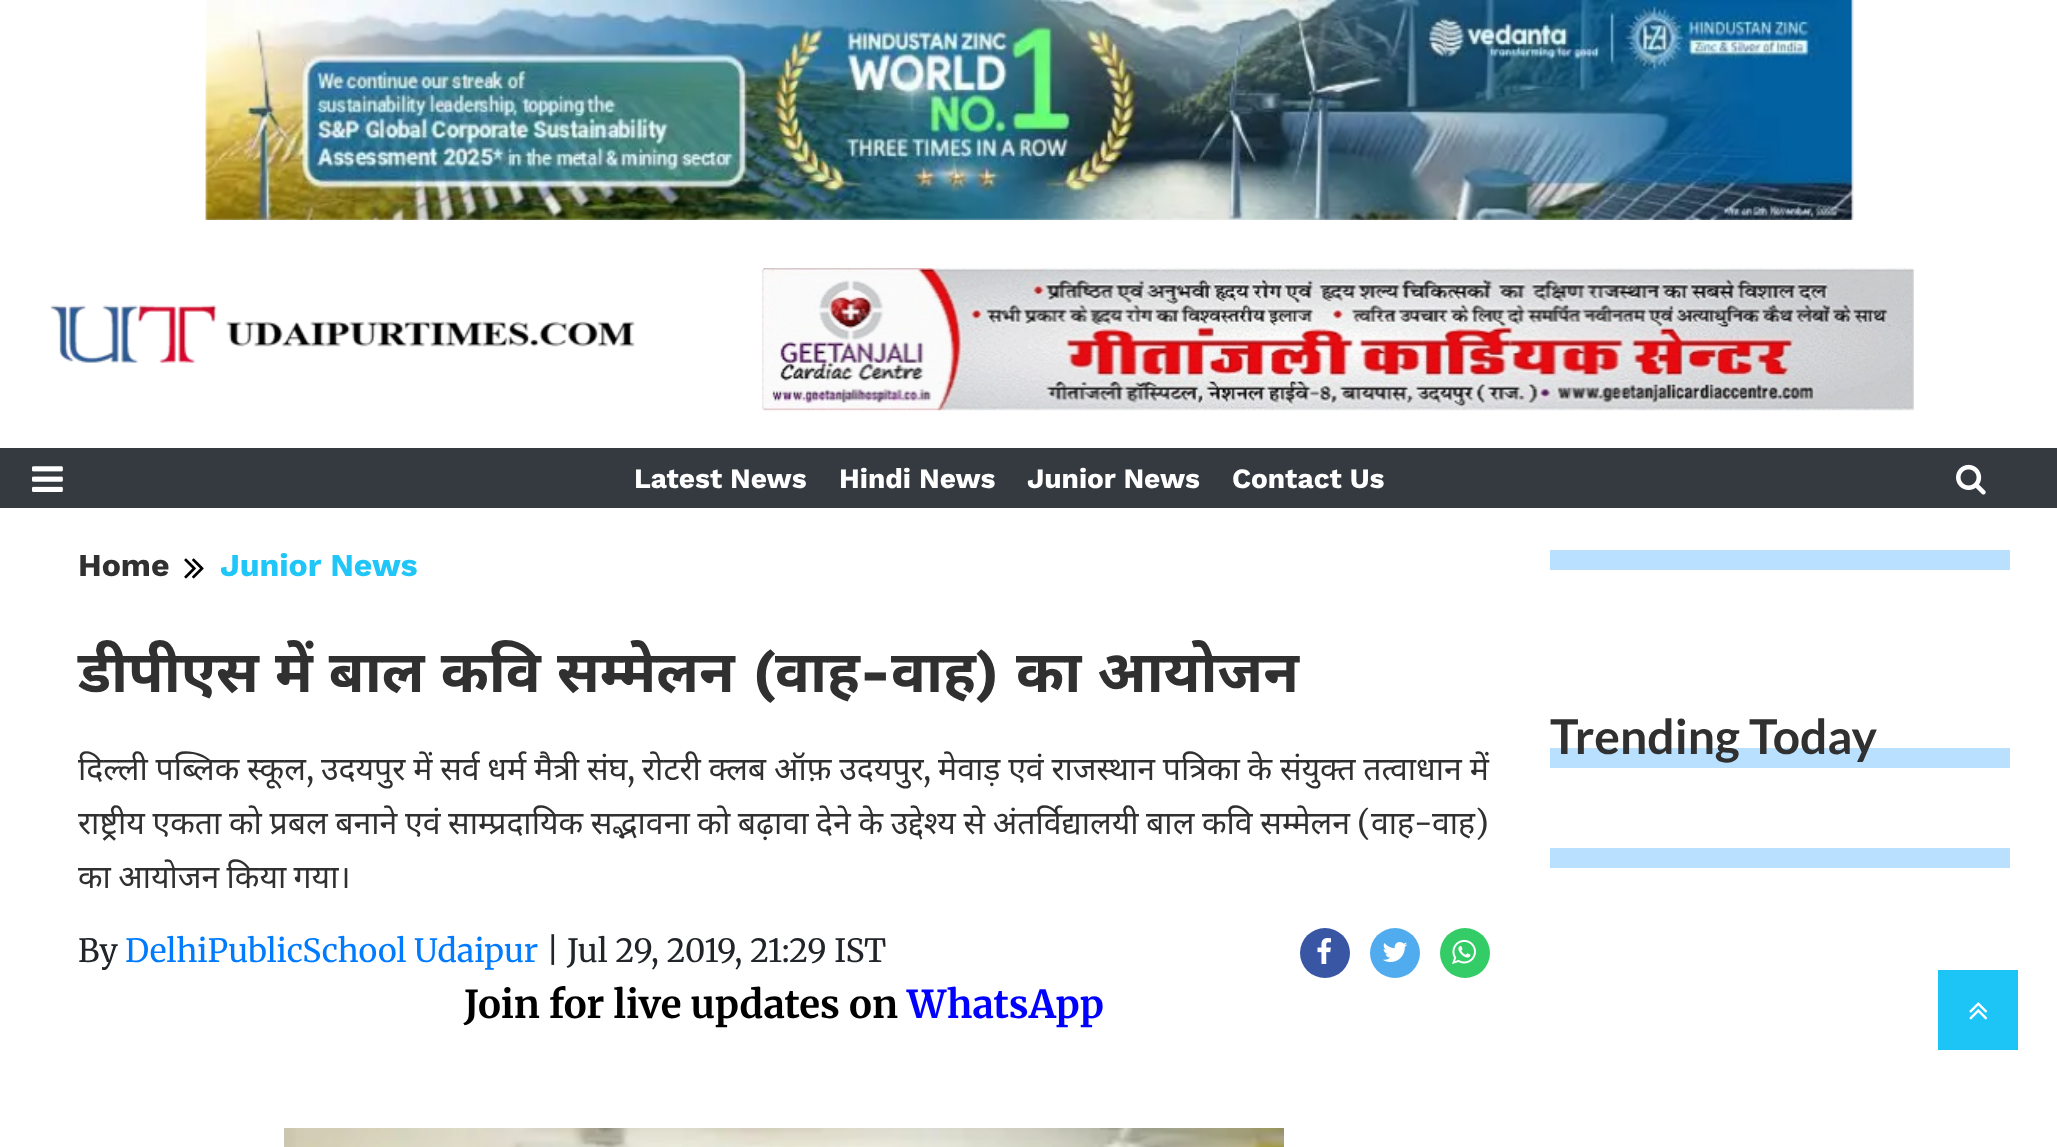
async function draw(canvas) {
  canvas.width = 2057
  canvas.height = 1147
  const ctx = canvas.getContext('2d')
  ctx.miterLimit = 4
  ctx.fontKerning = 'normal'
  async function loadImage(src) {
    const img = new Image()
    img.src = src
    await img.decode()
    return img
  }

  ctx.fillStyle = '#fff'
  ctx.fillRect(0, 0, 2057, 1147)
  ctx.drawImage(await loadImage('image0.png'), 205, 0, 1649, 220)
  ctx.drawImage(await loadImage('image1.png'), 50, 305, 585, 58)
  ctx.drawImage(await loadImage('image2.png'), 762, 268, 1152, 143)
  ctx.fillStyle = '#343a40'
  ctx.fillRect(0, 448, 2057, 60)
  ctx.drawImage(await loadImage('image3.png'), 32, 466, 31, 26)
  ctx.font = 'bold 28px Work Sans'
  ctx.fillStyle = '#fff'
  ctx.fillText('Latest News', 634, 488)
  ctx.fillText('Hindi News', 839, 488)
  ctx.fillText('Junior News', 1027, 488)
  ctx.fillText('Contact Us', 1232, 488)
  ctx.drawImage(await loadImage('image4.png'), 1956, 464, 30, 31)
  ctx.font = 'bold 32px Work Sans'
  ctx.fillStyle = '#303030'
  ctx.fillText('Home', 78, 576)
  ctx.drawImage(await loadImage('image5.png'), 184, 558, 20, 21)
  ctx.fillStyle = '#20c6f7'
  ctx.fillText('Junior News', 220, 576)
  ctx.wordSpacing = '1px'
  ctx.font = 'bold 58px Noto Sans'
  ctx.fillStyle = '#303030'
  ctx.fillText('डीपीएस में बाल कवि सम्मेलन', 78, 692)
  ctx.wordSpacing = '0px'
  ctx.font = 'bold 58px Work Sans'
  ctx.fillText('(', 753, 692)
  ctx.font = 'bold 58px Noto Sans'
  ctx.fillText('वाह', 775, 692)
  ctx.font = 'bold 58px Work Sans'
  ctx.fillText('-', 860, 692)
  ctx.font = 'bold 58px Noto Sans'
  ctx.fillText('वाह', 891, 692)
  ctx.font = 'bold 58px Work Sans'
  ctx.fillText(')', 976, 692)
  ctx.wordSpacing = '1px'
  ctx.font = 'bold 58px Noto Sans'
  ctx.fillText('का आयोजन', 1016, 692)
  ctx.wordSpacing = '-0.5px'
  ctx.font = '32px Noto Sans'
  ctx.fillText('दिल्ली पब्लिक स्कूल', 78, 780)
  ctx.wordSpacing = '0px'
  ctx.font = '32px Merriweather'
  ctx.fillText(',', 306, 780)
  ctx.wordSpacing = '-0.5px'
  ctx.font = '32px Noto Sans'
  ctx.fillText('उदयपुर में सर्व धर्म मैत्री संघ', 321, 780)
  ctx.wordSpacing = '0px'
  ctx.font = '32px Merriweather'
  ctx.fillText(',', 627, 780)
  ctx.wordSpacing = '-0.5px'
  ctx.font = '32px Noto Sans'
  ctx.fillText('रोटरी क्लब ऑफ़ उदयपुर', 642, 780)
  ctx.wordSpacing = '0px'
  ctx.font = '32px Merriweather'
  ctx.fillText(',', 923, 780)
  ctx.wordSpacing = '-0.5px'
  ctx.font = '32px Noto Sans'
  ctx.fillText('मेवाड़ एवं राजस्थान पत्रिका के संयुक्त तत्वाधान में', 938, 780)
  ctx.wordSpacing = '-0.7px'
  ctx.fillText('राष्ट्रीय एकता को प्रबल बनाने एवं साम्प्रदायिक सद्भावना को बढ़ावा देने के उद्देश्य से अंतर्विद्यालयी बाल कवि सम्मेलन', 78, 834)
  ctx.wordSpacing = '0px'
  ctx.font = '32px Merriweather'
  ctx.fillText('(', 1357, 834)
  ctx.font = '32px Noto Sans'
  ctx.fillText('वाह', 1371, 834)
  ctx.font = '32px Merriweather'
  ctx.fillText('-', 1414, 834)
  ctx.font = '32px Noto Sans'
  ctx.fillText('वाह', 1432, 834)
  ctx.font = '32px Merriweather'
  ctx.fillText(')', 1475, 834)
  ctx.wordSpacing = '-1px'
  ctx.font = '32px Noto Sans'
  ctx.fillText('का आयोजन किया गया।', 78, 888)
  ctx.wordSpacing = '0px'
  ctx.font = '32px Merriweather'
  ctx.fillStyle = '#212529'
  ctx.fillText('By', 78, 962)
  ctx.fillStyle = '#007bff'
  ctx.fillText('DelhiPublicSchool Udaipur', 125, 962)
  ctx.fillStyle = '#212529'
  ctx.fillText('| Jul 29, 2019, 21:29 IST', 546, 962)
  ctx.fillStyle = '#3956a5'
  ctx.beginPath()
  ctx.arc(1325, 953, 25, 0, 2 * Math.PI)
  ctx.fill()
  ctx.drawImage(await loadImage('image6.png'), 1317, 938, 14, 26)
  ctx.fillStyle = '#51acef'
  ctx.beginPath()
  ctx.arc(1395, 953, 25, 0, 2 * Math.PI)
  ctx.fill()
  ctx.drawImage(await loadImage('image7.png'), 1382, 942, 26, 20)
  ctx.fillStyle = '#3c6'
  ctx.beginPath()
  ctx.arc(1465, 953, 25, 0, 2 * Math.PI)
  ctx.fill()
  ctx.drawImage(await loadImage('image8.png'), 1452, 939, 24, 25)
  ctx.font = 'bold 38.4px Merriweather'
  ctx.fillStyle = '#000'
  ctx.fillText('Join for live updates on', 464, 1018)
  ctx.fillStyle = '#00f'
  ctx.fillText('WhatsApp', 907, 1018)
  ctx.drawImage(await loadImage('image9.png'), 284, 1128, 1000, 19)
  ctx.fillStyle = '#b9e1ff'
  ctx.fillRect(1550, 550, 460, 20)
  ctx.fillRect(1550, 748, 460, 20)
  ctx.font = 'bold 48px Lato'
  ctx.fillStyle = '#303030'
  ctx.fillText('Trending Today', 1550, 754)
  ctx.fillStyle = '#b9e1ff'
  ctx.fillRect(1550, 848, 460, 20)
  ctx.fillStyle = '#1dc4f6'
  ctx.fillRect(1938, 970, 80, 80)
  ctx.drawImage(await loadImage('image10.png'), 1969, 1002, 19, 18)
}

draw(document.querySelector('canvas'))
